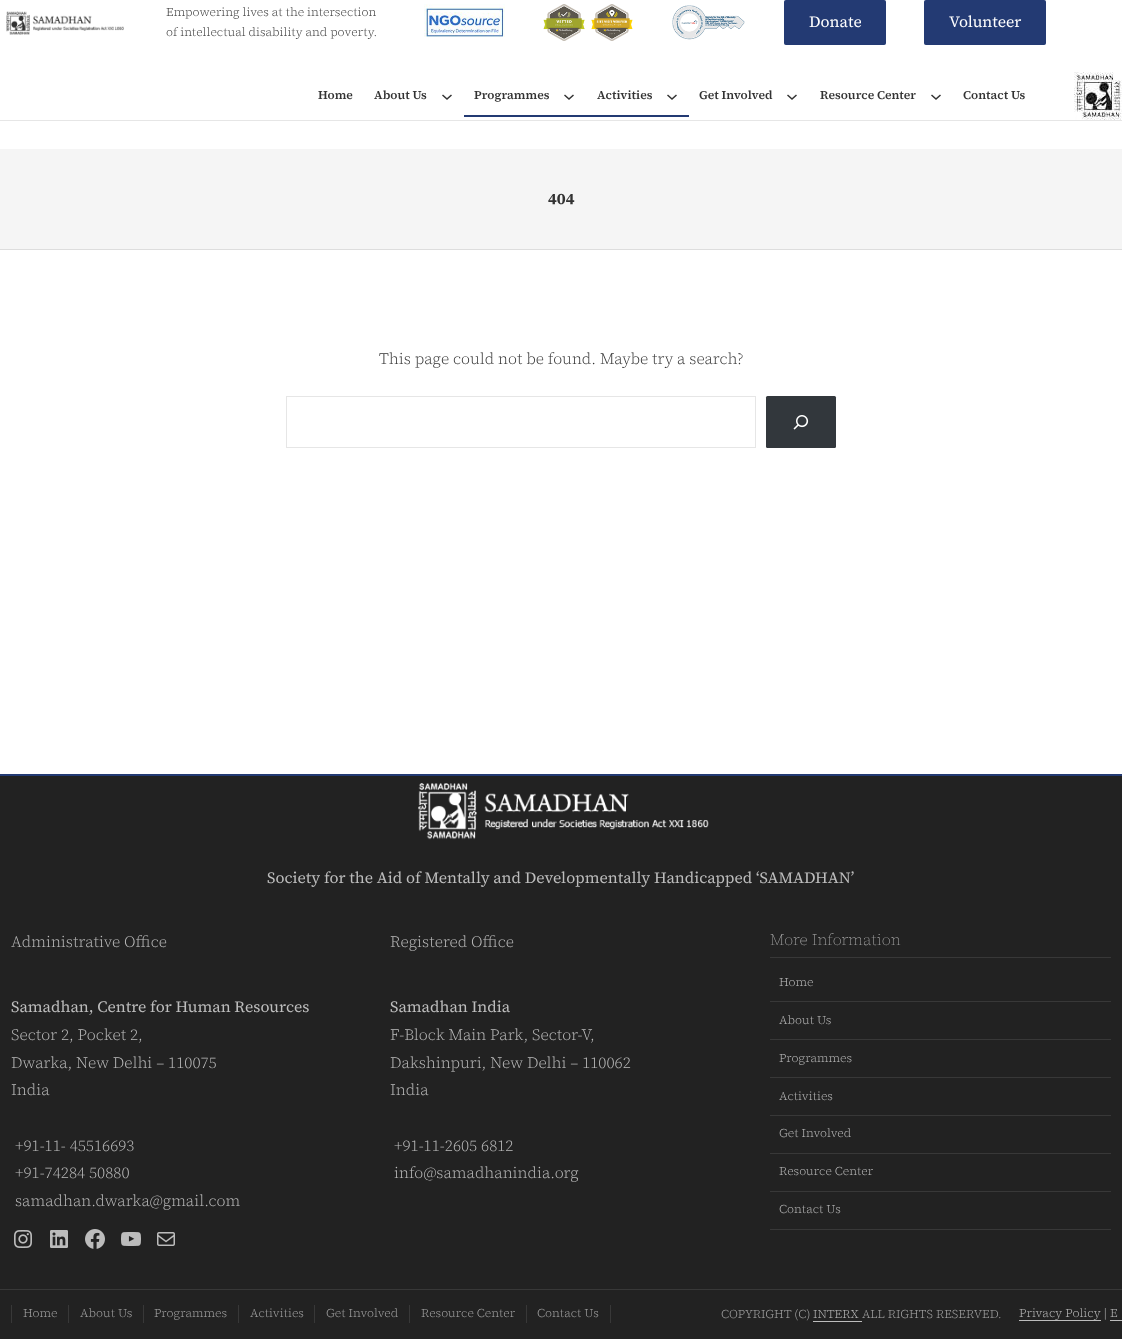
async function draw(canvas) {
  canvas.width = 1122
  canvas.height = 1339
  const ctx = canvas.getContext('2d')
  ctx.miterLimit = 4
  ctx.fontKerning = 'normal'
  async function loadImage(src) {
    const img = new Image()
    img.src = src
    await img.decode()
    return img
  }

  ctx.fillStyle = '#fff'
  ctx.fillRect(0, 0, 1122, 1339)
  ctx.drawImage(await loadImage('image0.png'), 6, 11, 118, 24)
  ctx.font = '300 11.9px "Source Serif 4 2"'
  ctx.fillStyle = '#333'
  ctx.fillText('Empowering lives at the intersection', 166, 16)
  ctx.fillText('of intellectual disability and poverty.', 166, 36)
  ctx.drawImage(await loadImage('image1.png'), 424, 4, 81, 33)
  ctx.drawImage(await loadImage('image2.png'), 543, 4, 90, 37)
  ctx.drawImage(await loadImage('image3.png'), 672, 5, 73, 35)
  ctx.fillStyle = '#233a73'
  ctx.beginPath()
  ctx.roundRect(784.5, 0.5, 101, 44, 1)
  ctx.fill()
  ctx.strokeStyle = '#233a73'
  ctx.stroke()
  ctx.font = '15.8px "Source Serif 4"'
  ctx.fillStyle = '#fff'
  ctx.fillText('Donate', 809, 27)
  ctx.fillStyle = '#233a73'
  ctx.beginPath()
  ctx.roundRect(924.5, 0.5, 121, 44, 1)
  ctx.fill()
  ctx.stroke()
  ctx.fillStyle = '#fff'
  ctx.fillText('Volunteer', 949, 27)
  ctx.font = '600 11.9px "Source Serif 4"'
  ctx.fillStyle = '#333'
  ctx.fillText('Home', 318, 99)
  ctx.fillText('About Us', 374, 99)
  ctx.beginPath()
  ctx.moveTo(442.5, 95)
  ctx.lineTo(447, 99)
  ctx.lineTo(451.5, 95)
  ctx.strokeStyle = '#333'
  ctx.lineWidth = 1.5
  ctx.stroke()
  ctx.fillText('Programmes', 474, 99)
  ctx.fillStyle = '#233a73'
  ctx.fillRect(464, 115, 225, 2)
  ctx.beginPath()
  ctx.moveTo(564.5, 95)
  ctx.lineTo(569, 99)
  ctx.lineTo(573.5, 95)
  ctx.stroke()
  ctx.fillStyle = '#333'
  ctx.fillText('Activities', 597, 99)
  ctx.beginPath()
  ctx.moveTo(667.5, 95)
  ctx.lineTo(672, 99)
  ctx.lineTo(676.5, 95)
  ctx.stroke()
  ctx.fillText('Get Involved', 699, 99)
  ctx.beginPath()
  ctx.moveTo(787.5, 95)
  ctx.lineTo(792, 99)
  ctx.lineTo(796.5, 95)
  ctx.stroke()
  ctx.fillText('Resource Center', 820, 99)
  ctx.beginPath()
  ctx.moveTo(931.5, 95)
  ctx.lineTo(936, 99)
  ctx.lineTo(940.5, 95)
  ctx.stroke()
  ctx.fillText('Contact Us', 963, 99)
  ctx.drawImage(await loadImage('image4.png'), 1074, 72, 48, 48)
  ctx.fillStyle = '#e6e6e6'
  ctx.fillRect(0, 120, 1122, 1)
  ctx.fillStyle = '#f5f5f5'
  ctx.fillRect(0, 149, 1122, 100)
  ctx.fillStyle = '#ddd'
  ctx.fillRect(0, 249, 1122, 1)
  ctx.font = 'bold 15.8px "Source Serif 4"'
  ctx.fillStyle = '#333'
  ctx.fillText('404', 548, 204)
  ctx.font = '300 15.8px "Source Serif 4"'
  ctx.fillText('This page could not be found. Maybe try a search?', 379, 364)
  ctx.strokeStyle = '#e6e6e6'
  ctx.lineWidth = 1
  ctx.strokeRect(286.5, 396.5, 469, 51)
  ctx.fillStyle = '#32373c'
  ctx.beginPath()
  ctx.roundRect(766, 396, 70, 52, 1.5)
  ctx.fill()
  ctx.drawImage(await loadImage('image5.png'), 793, 415, 16, 15)
  ctx.fillStyle = '#222'
  ctx.fillRect(0, 776, 1122, 563)
  ctx.fillStyle = '#233a73'
  ctx.fillRect(0, 774, 1122, 2)
  ctx.drawImage(await loadImage('image6.png'), 418, 783, 291, 57)
  ctx.font = '15.8px "Source Serif 4"'
  ctx.fillStyle = '#bdbdbd'
  ctx.fillText('Society for the Aid of Mentally and Developmentally Handicapped ‘SAMADHAN’', 267, 883)
  ctx.font = '300 15.8px "Source Serif 4"'
  ctx.fillText('Administrative Office', 11, 947)
  ctx.font = '15.8px "Source Serif 4"'
  ctx.fillText('Samadhan, Centre for Human Resources', 11, 1012)
  ctx.font = '300 15.8px "Source Serif 4"'
  ctx.fillText('Sector 2, Pocket 2,', 11, 1040)
  ctx.fillText('Dwarka, New Delhi – 110075', 11, 1068)
  ctx.fillText('India', 11, 1095)
  ctx.fillText('+91-11- 45516693', 15, 1151)
  ctx.fillText('+91-74284 50880', 15, 1178)
  ctx.fillText('samadhan.dwarka@gmail.com', 15, 1206)
  ctx.drawImage(await loadImage('image7.png'), 14, 1230, 18, 18)
  ctx.drawImage(await loadImage('image8.png'), 50, 1230, 18, 18)
  ctx.drawImage(await loadImage('image9.png'), 85, 1229, 20, 20)
  ctx.drawImage(await loadImage('image10.png'), 121, 1232, 20, 14)
  ctx.drawImage(await loadImage('image11.png'), 157, 1232, 18, 14)
  ctx.fillText('Registered Office', 390, 947)
  ctx.font = '15.8px "Source Serif 4"'
  ctx.fillText('Samadhan India', 390, 1012)
  ctx.font = '300 15.8px "Source Serif 4"'
  ctx.fillText('F-Block Main Park, Sector-V,', 390, 1040)
  ctx.fillText('Dakshinpuri, New Delhi – 110062', 390, 1068)
  ctx.fillText('India', 390, 1095)
  ctx.fillText('+91-11-2605 6812', 394, 1151)
  ctx.fillText('info@samadhanindia.org', 394, 1178)
  ctx.fillStyle = '#383838'
  ctx.fillRect(770, 957, 341, 1)
  ctx.font = '200 15.8px "Source Serif 4"'
  ctx.fillStyle = '#bdbdbd'
  ctx.fillText('More Information', 770, 945)
  ctx.fillStyle = '#383838'
  ctx.fillRect(770, 1001, 341, 1)
  ctx.font = '300 11.9px "Source Serif 4 2"'
  ctx.fillStyle = '#bdbdbd'
  ctx.fillText('Home', 779, 986)
  ctx.fillStyle = '#383838'
  ctx.fillRect(770, 1039, 341, 1)
  ctx.fillStyle = '#bdbdbd'
  ctx.fillText('About Us', 779, 1024)
  ctx.fillStyle = '#383838'
  ctx.fillRect(770, 1077, 341, 1)
  ctx.fillStyle = '#bdbdbd'
  ctx.fillText('Programmes', 779, 1062)
  ctx.fillStyle = '#383838'
  ctx.fillRect(770, 1115, 341, 1)
  ctx.fillStyle = '#bdbdbd'
  ctx.fillText('Activities', 779, 1100)
  ctx.fillStyle = '#383838'
  ctx.fillRect(770, 1153, 341, 1)
  ctx.fillStyle = '#bdbdbd'
  ctx.fillText('Get Involved', 779, 1137)
  ctx.fillStyle = '#383838'
  ctx.fillRect(770, 1191, 341, 1)
  ctx.fillStyle = '#bdbdbd'
  ctx.fillText('Resource Center', 779, 1175)
  ctx.fillStyle = '#383838'
  ctx.fillRect(770, 1229, 341, 1)
  ctx.fillStyle = '#bdbdbd'
  ctx.fillText('Contact Us', 779, 1213)
  ctx.fillStyle = '#383838'
  ctx.fillRect(0, 1289, 1122, 1)
  ctx.fillRect(11, 1305, 1, 18)
  ctx.fillStyle = '#a7a7a7'
  ctx.fillText('Home', 23, 1317)
  ctx.fillStyle = '#383838'
  ctx.fillRect(68, 1305, 1, 18)
  ctx.fillStyle = '#a7a7a7'
  ctx.fillText('About Us', 80, 1317)
  ctx.fillStyle = '#383838'
  ctx.fillRect(143, 1305, 1, 18)
  ctx.fillStyle = '#a7a7a7'
  ctx.fillText('Programmes', 154, 1317)
  ctx.fillStyle = '#383838'
  ctx.fillRect(238, 1305, 1, 18)
  ctx.fillStyle = '#a7a7a7'
  ctx.fillText('Activities', 250, 1317)
  ctx.fillStyle = '#383838'
  ctx.fillRect(314, 1305, 1, 18)
  ctx.fillStyle = '#a7a7a7'
  ctx.fillText('Get Involved', 326, 1317)
  ctx.fillStyle = '#383838'
  ctx.fillRect(409, 1305, 1, 18)
  ctx.fillStyle = '#a7a7a7'
  ctx.fillText('Resource Center', 421, 1317)
  ctx.fillStyle = '#383838'
  ctx.fillRect(610, 1305, 1, 18)
  ctx.fillRect(526, 1305, 1, 18)
  ctx.fillStyle = '#a7a7a7'
  ctx.fillText('Contact Us', 537, 1317)
  ctx.fillText('COPYRIGHT (C)', 721, 1318)
  ctx.fillStyle = '#bdbdbd'
  ctx.fillText('INTERX', 813, 1318)
  ctx.fillRect(813, 1321, 49, 1)
  ctx.fillStyle = '#a7a7a7'
  ctx.fillText('ALL RIGHTS RESERVED.', 862, 1318)
  ctx.font = '300 12px "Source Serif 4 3"'
  ctx.fillStyle = '#bdbdbd'
  ctx.fillText('Privacy Policy | E', 1019, 1317)
  ctx.fillRect(1019, 1320, 82, 1)
  ctx.fillRect(1110, 1320, 12, 1)
}

draw(document.querySelector('canvas'))
